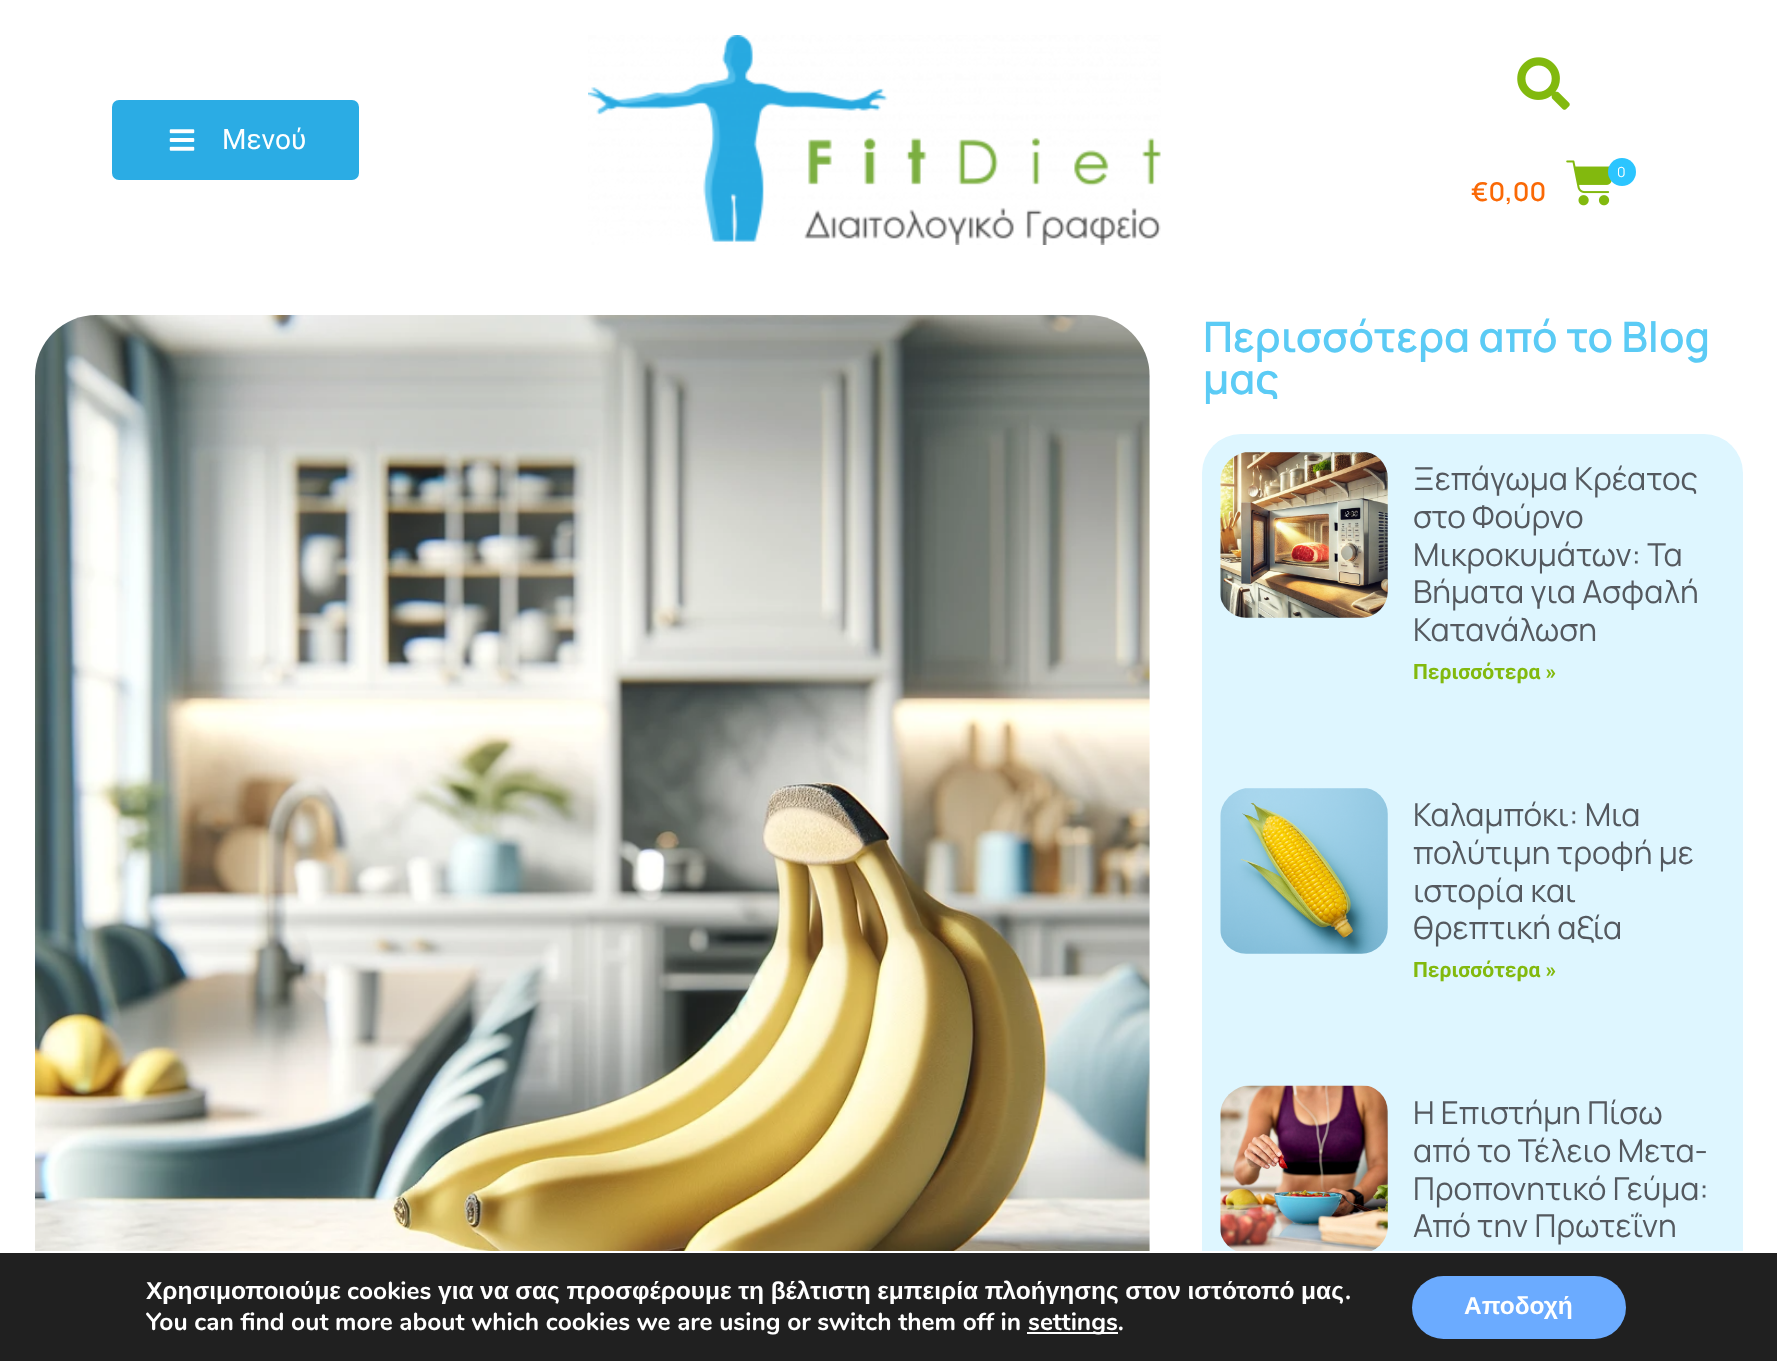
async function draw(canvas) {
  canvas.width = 1777
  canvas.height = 1361
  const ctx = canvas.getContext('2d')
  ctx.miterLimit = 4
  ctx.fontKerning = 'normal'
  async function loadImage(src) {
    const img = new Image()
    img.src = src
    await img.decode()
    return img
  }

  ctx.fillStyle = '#fff'
  ctx.fillRect(0, 0, 1777, 1361)
  ctx.fillStyle = '#2bace4'
  ctx.beginPath()
  ctx.roundRect(112, 100, 247, 80, 7)
  ctx.fill()
  ctx.drawImage(await loadImage('image0.png'), 169, 129, 26, 22)
  ctx.font = '28px Roboto'
  ctx.fillStyle = '#fff'
  ctx.fillText('Μενού', 222, 149)
  ctx.drawImage(await loadImage('image1.png'), 588, 35, 573, 210)
  ctx.drawImage(await loadImage('image2.png'), 1517, 57, 53, 53)
  ctx.drawImage(await loadImage('image3.png'), 1566, 160, 46, 46)
  ctx.fillStyle = '#2bc5ff'
  ctx.beginPath()
  ctx.arc(1622, 172, 14, 0, 2 * Math.PI)
  ctx.fill()
  ctx.font = '14px Manrope'
  ctx.fillStyle = '#fff'
  ctx.fillText('0', 1617, 177)
  ctx.font = '600 26px Manrope'
  ctx.fillStyle = '#fa6906'
  ctx.fillText('€0,00', 1471, 201)
  ctx.drawImage(await loadImage('image4.png'), 35, 315, 1115, 936)
  ctx.font = '600 42px Manrope'
  ctx.fillStyle = '#5bcbf5'
  ctx.fillText('Περισσότερα από το Blog', 1203, 352)
  ctx.fillText('μας', 1203, 394)
  ctx.fillStyle = '#def6ff'
  ctx.beginPath()
  ctx.roundRect(1202, 434, 541, 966, 39)
  ctx.fill()
  ctx.drawImage(await loadImage('image5.png'), 1220, 452, 168, 166)
  ctx.font = '31.5px Manrope'
  ctx.fillStyle = '#54595f'
  ctx.fillText('Ξεπάγωμα Κρέατος', 1413, 490)
  ctx.fillText('στο Φούρνο', 1413, 528)
  ctx.fillText('Μικροκυμάτων: Τα', 1413, 566)
  ctx.fillText('Βήματα για Ασφαλή', 1413, 603)
  ctx.fillText('Κατανάλωση', 1413, 641)
  ctx.font = 'bold 21px Roboto'
  ctx.fillStyle = '#82b90e'
  ctx.fillText('Περισσότερα »', 1413, 679)
  ctx.drawImage(await loadImage('image6.png'), 1220, 788, 168, 166)
  ctx.font = '31.5px Manrope'
  ctx.fillStyle = '#54595f'
  ctx.fillText('Καλαμπόκι: Μια', 1413, 826)
  ctx.fillText('πολύτιμη τροφή με', 1413, 864)
  ctx.fillText('ιστορία και', 1413, 902)
  ctx.fillText('θρεπτική αξία', 1413, 939)
  ctx.font = 'bold 21px Roboto'
  ctx.fillStyle = '#82b90e'
  ctx.fillText('Περισσότερα »', 1413, 977)
  ctx.drawImage(await loadImage('image7.png'), 1220, 1085, 168, 166)
  ctx.font = '31.5px Manrope'
  ctx.fillStyle = '#54595f'
  ctx.fillText('Η Επιστήμη Πίσω', 1413, 1124)
  ctx.fillText('από το Τέλειο Μετα-', 1413, 1162)
  ctx.fillText('Προπονητικό Γεύμα:', 1413, 1200)
  ctx.fillText('Από την Πρωτεΐνη', 1413, 1237)
  ctx.fillStyle = '#202020'
  ctx.fillRect(0, 1253, 1777, 108)
  ctx.fillStyle = '#fff'
  ctx.fillRect(1202, 1251, 541, 2)
  ctx.font = 'bold 24.5px Liberation Sans'
  ctx.fillText('Χρησιμοποιούμε', 146, 1299)
  ctx.font = 'bold 24.5px Nunito'
  ctx.fillText('cookies', 347, 1299)
  ctx.wordSpacing = '-0.25px'
  ctx.font = 'bold 24.5px Liberation Sans'
  ctx.fillText('για να σας προσφέρουμε τη βέλτιστη εμπειρία πλοήγησης στον ιστότοπό μας', 438, 1299)
  ctx.wordSpacing = '0px'
  ctx.font = 'bold 24.5px Nunito'
  ctx.fillText('.', 1345, 1299)
  ctx.fillText('You can find out more about which cookies we are using or switch them off in', 146, 1330)
  ctx.fillRect(1027, 1332, 91, 2)
  ctx.fillText('settings.', 1028, 1330)
  ctx.fillStyle = '#6babff'
  ctx.beginPath()
  ctx.roundRect(1412, 1276, 214, 63, 31.5)
  ctx.fill()
  ctx.font = 'bold 24.5px Liberation Sans'
  ctx.fillStyle = '#fff'
  ctx.fillText('Αποδοχή', 1464, 1314)
}

draw(document.querySelector('canvas'))
